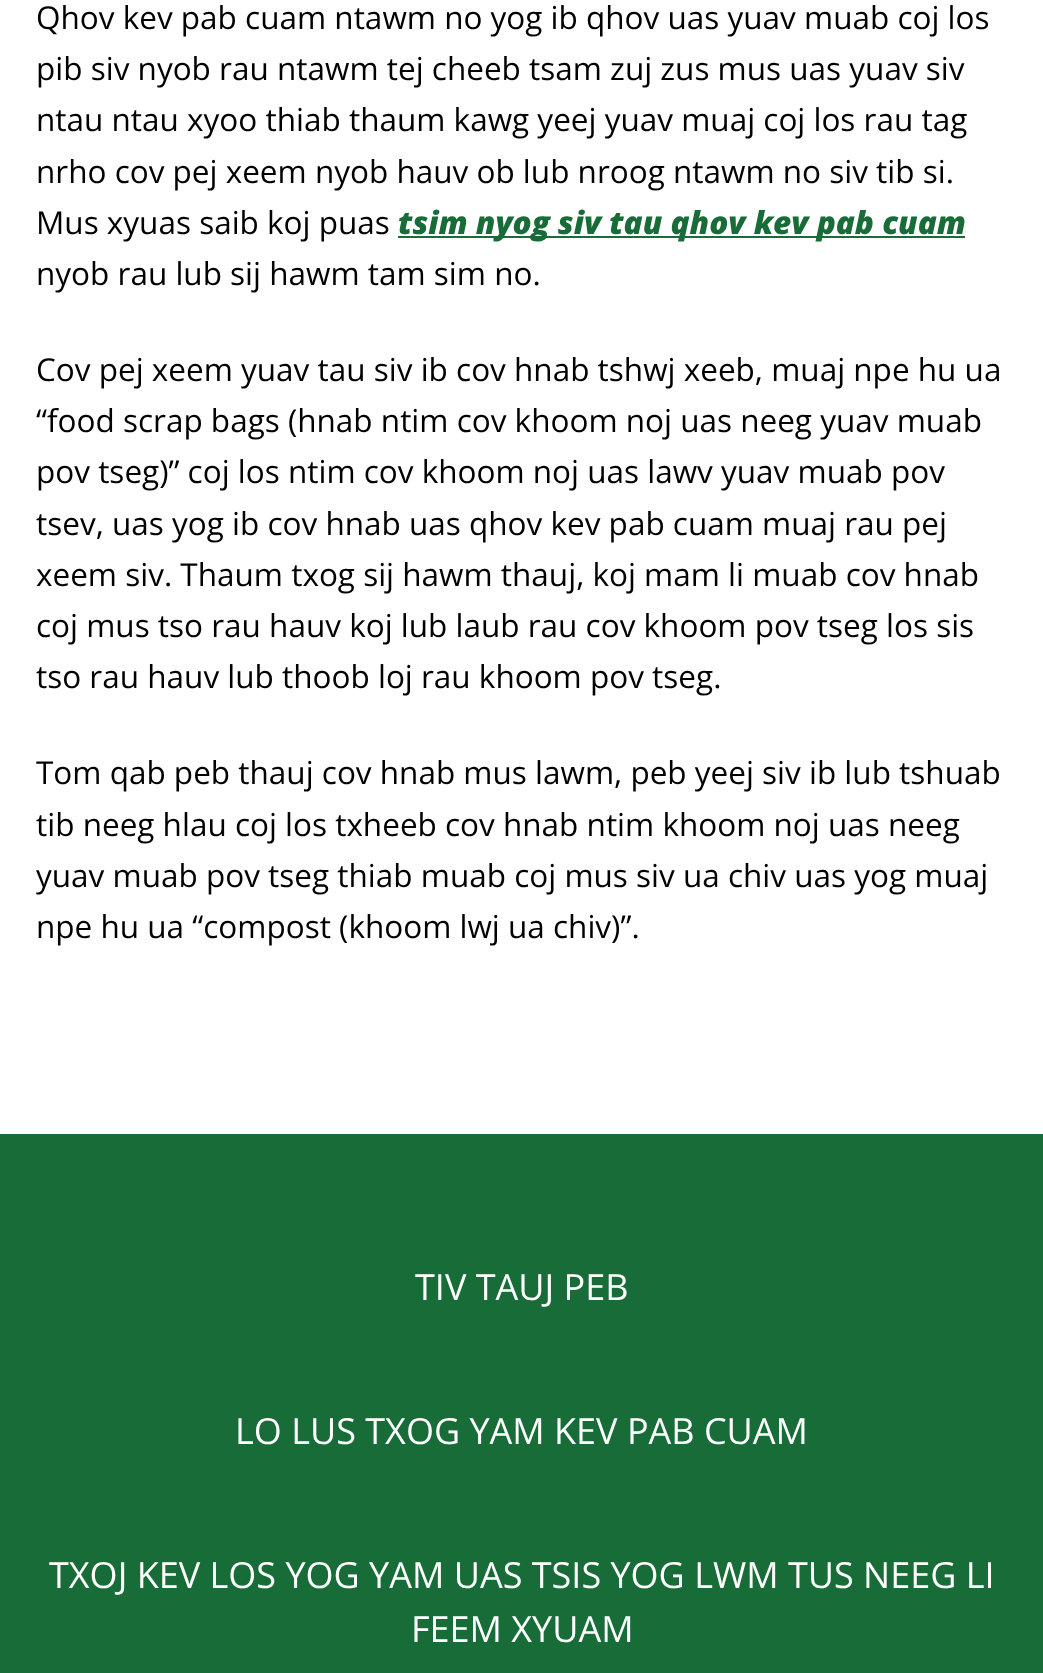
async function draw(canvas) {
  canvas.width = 1043
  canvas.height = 1673
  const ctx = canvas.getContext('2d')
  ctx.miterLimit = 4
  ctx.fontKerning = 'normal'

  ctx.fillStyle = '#fff'
  ctx.fillRect(0, 0, 1043, 1673)
  ctx.font = '31.5px Open Sans'
  ctx.fillStyle = '#000'
  ctx.fillText('Qhov kev pab cuam ntawm no yog ib qhov uas yuav muab coj los', 36, 29)
  ctx.fillText('pib siv nyob rau ntawm tej cheeb tsam zuj zus mus uas yuav siv', 36, 80)
  ctx.fillText('ntau ntau xyoo thiab thaum kawg yeej yuav muaj coj los rau tag', 36, 131)
  ctx.fillText('nrho cov pej xeem nyob hauv ob lub nroog ntawm no siv tib si.', 36, 183)
  ctx.fillText('Mus xyuas saib koj puas', 36, 234)
  ctx.fillStyle = '#176c37'
  ctx.fillRect(398, 236, 567, 2)
  ctx.font = 'italic 800 31.5px Open Sans'
  ctx.fillText('tsim nyog siv tau qhov kev pab cuam', 398, 234)
  ctx.font = '31.5px Open Sans'
  ctx.fillStyle = '#000'
  ctx.fillText('nyob rau lub sij hawm tam sim no.', 36, 285)
  ctx.fillText('Cov pej xeem yuav tau siv ib cov hnab tshwj xeeb, muaj npe hu ua', 36, 381)
  ctx.fillText('“food scrap bags (hnab ntim cov khoom noj uas neeg yuav muab', 36, 432)
  ctx.fillText('pov tseg)” coj los ntim cov khoom noj uas lawv yuav muab pov', 36, 483)
  ctx.fillText('tsev, uas yog ib cov hnab uas qhov kev pab cuam muaj rau pej', 36, 535)
  ctx.fillText('xeem siv. Thaum txog sij hawm thauj, koj mam li muab cov hnab', 36, 586)
  ctx.fillText('coj mus tso rau hauv koj lub laub rau cov khoom pov tseg los sis', 36, 637)
  ctx.fillText('tso rau hauv lub thoob loj rau khoom pov tseg.', 36, 688)
  ctx.fillText('Tom qab peb thauj cov hnab mus lawm, peb yeej siv ib lub tshuab', 36, 784)
  ctx.fillText('tib neeg hlau coj los txheeb cov hnab ntim khoom noj uas neeg', 36, 836)
  ctx.fillText('yuav muab pov tseg thiab muab coj mus siv ua chiv uas yog muaj', 36, 887)
  ctx.fillText('npe hu ua “compost (khoom lwj ua chiv)”.', 36, 938)
  ctx.fillStyle = '#176c37'
  ctx.fillRect(0, 1134, 1043, 539)
  ctx.font = '36px Open Sans'
  ctx.fillStyle = '#fff'
  ctx.fillText('TIV TAUJ PEB', 415, 1300)
  ctx.fillText('LO LUS TXOG YAM KEV PAB CUAM', 235, 1444)
  ctx.fillText('TXOJ KEV LOS YOG YAM UAS TSIS YOG LWM TUS NEEG LI', 49, 1588)
  ctx.fillText('FEEM XYUAM', 411, 1642)
}

draw(document.querySelector('canvas'))
